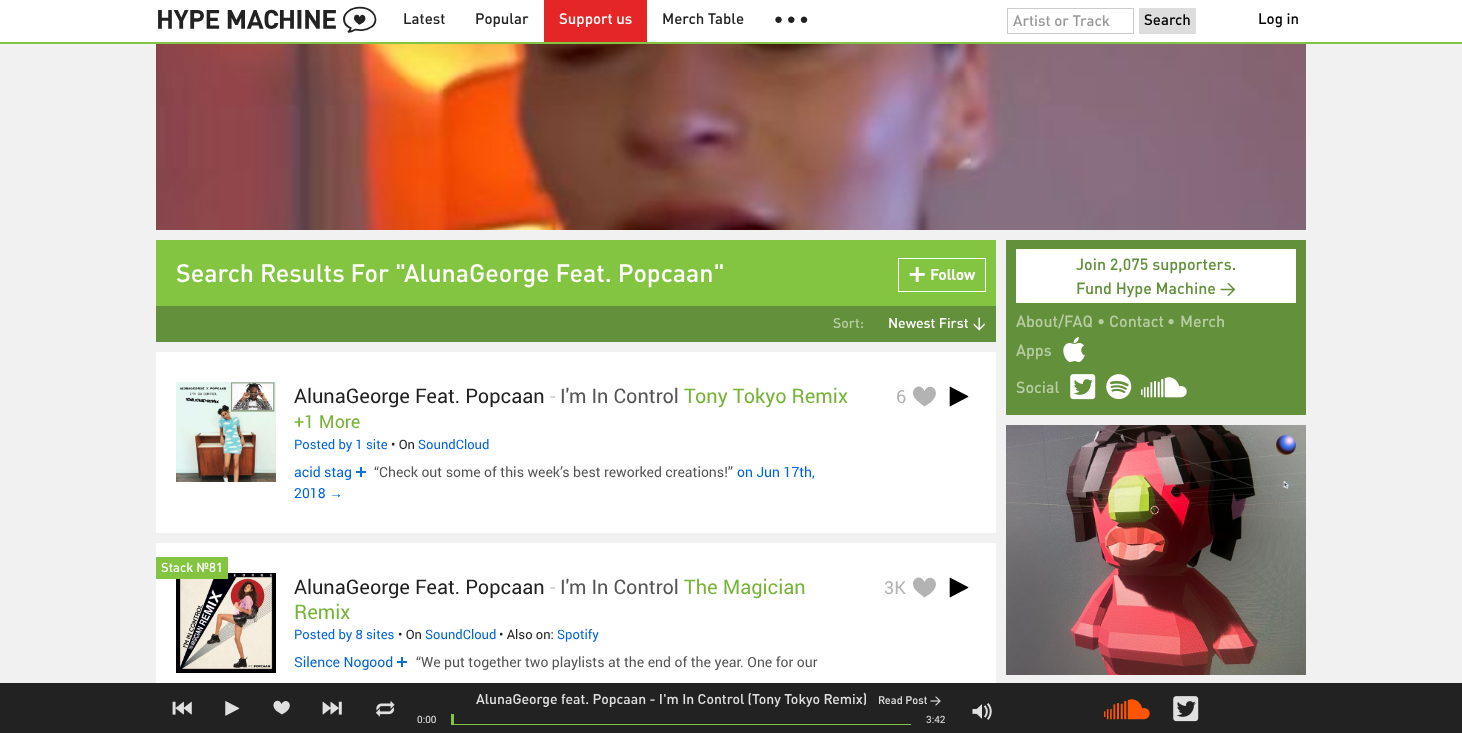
async function draw(canvas) {
  canvas.width = 1462
  canvas.height = 733
  const ctx = canvas.getContext('2d')
  ctx.miterLimit = 4
  ctx.fontKerning = 'normal'
  async function loadImage(src) {
    const img = new Image()
    img.src = src
    await img.decode()
    return img
  }

  ctx.fillStyle = '#f1f1f1'
  ctx.fillRect(0, 0, 1462, 733)
  ctx.fillStyle = '#fff'
  ctx.fillRect(0, 0, 1462, 42)
  ctx.fillStyle = '#83c441'
  ctx.fillRect(0, 42, 1462, 2)
  ctx.font = '38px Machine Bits'
  ctx.fillStyle = '#222'
  ctx.fillText('1', 156, 28)
  ctx.font = '500 15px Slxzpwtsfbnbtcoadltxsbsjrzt'
  ctx.fillText('Latest', 403, 24)
  ctx.fillText('Popular', 475, 24)
  ctx.fillStyle = '#e42626'
  ctx.fillRect(544, 0, 103, 42)
  ctx.fillStyle = '#fff'
  ctx.fillText('Support us', 559, 24)
  ctx.fillStyle = '#222'
  ctx.fillText('Merch Table', 662, 24)
  ctx.font = 'bold 15px Liberation Serif'
  ctx.fillText('● ● ●', 774, 24)
  ctx.strokeStyle = '#ccc'
  ctx.strokeRect(1007.5, 8.5, 126, 25)
  ctx.font = '500 15px Slxzpwtsfbnbtcoadltxsbsjrzt'
  ctx.fillStyle = '#999'
  ctx.fillText('Artist or Track', 1013, 26)
  ctx.fillStyle = '#ddd'
  ctx.fillRect(1139, 8, 57, 26)
  ctx.fillStyle = '#000'
  ctx.fillText('Search', 1144, 25)
  ctx.fillText('Log in', 1258, 24)
  ctx.drawImage(await loadImage('image0.png'), 156, 44, 1150, 186)
  ctx.fillStyle = '#83c441'
  ctx.fillRect(156, 240, 840, 66)
  ctx.font = '500 25px Slxzpwtsfbnbtcoadltxsbsjrzt'
  ctx.fillStyle = '#fff'
  ctx.fillText('Search Results For "AlunaGeorge Feat. Popcaan"', 176, 282)
  ctx.strokeStyle = '#fff'
  ctx.strokeRect(898.5, 258.5, 87, 33)
  ctx.font = '15px Machine Bits'
  ctx.fillText('+', 909, 280)
  ctx.font = 'bold 15px Slxzpwtsfbnbtcoadltxsbsjrzt'
  ctx.fillText('Follow', 930, 280)
  ctx.fillStyle = '#63903a'
  ctx.fillRect(1006, 240, 300, 175)
  ctx.fillStyle = '#fff'
  ctx.fillRect(1016, 249, 280, 54)
  ctx.font = '500 16px Slxzpwtsfbnbtcoadltxsbsjrzt'
  ctx.fillStyle = '#63903a'
  ctx.fillText('Join 2,075 supporters.', 1076, 270)
  ctx.fillText('Fund Hype Machine →', 1076, 294)
  ctx.fillStyle = '#b9cda5'
  ctx.fillText('About/FAQ', 1016, 327)
  ctx.fillText('•', 1097, 327)
  ctx.fillText('Contact', 1109, 327)
  ctx.fillText('•', 1167, 327)
  ctx.fillText('Merch', 1180, 327)
  ctx.fillText('Apps', 1016, 356)
  ctx.drawImage(await loadImage('image1.png'), 1063, 337, 22, 26)
  ctx.fillText('Social', 1016, 393)
  ctx.drawImage(await loadImage('image2.png'), 1070, 374, 26, 26)
  ctx.drawImage(await loadImage('image3.png'), 1106, 374, 26, 26)
  ctx.font = '20px Machine Bits'
  ctx.fillStyle = '#fff'
  ctx.fillText('9', 1140, 395)
  ctx.drawImage(await loadImage('image4.png'), 1006, 425, 300, 250)
  ctx.fillStyle = '#63903a'
  ctx.fillRect(156, 306, 840, 36)
  ctx.font = '500 14px Slxzpwtsfbnbtcoadltxsbsjrzt'
  ctx.fillStyle = '#b9cda5'
  ctx.fillText('Sort:', 833, 328)
  ctx.fillStyle = '#fff'
  ctx.fillText('Newest First ↓', 888, 328)
  ctx.fillRect(156, 352, 840, 181)
  ctx.drawImage(await loadImage('image5.png'), 176, 382, 100, 100)
  ctx.font = '20px Roboto'
  ctx.fillStyle = '#222'
  ctx.fillText('AlunaGeorge Feat. Popcaan', 294, 403)
  ctx.fillStyle = '#ccc'
  ctx.fillText('-', 550, 403)
  ctx.fillStyle = '#555'
  ctx.fillText('I\'m In Control', 560, 403)
  ctx.fillStyle = '#76b438'
  ctx.fillText('Tony Tokyo Remix', 684, 403)
  ctx.font = '18px Roboto'
  ctx.fillText('+1 More', 294, 428)
  ctx.fillStyle = '#b3b3b3'
  ctx.fillText('6', 896, 403)
  ctx.beginPath()
  ctx.moveTo(924.5, 391)
  ctx.bezierCurveTo(929, 380.5, 944, 391.5, 930.5, 402.5)
  ctx.lineTo(924.5, 406.5)
  ctx.lineTo(917.5, 401)
  ctx.bezierCurveTo(906, 390.5, 920, 380.5, 924.5, 391)
  ctx.closePath()
  ctx.fill()
  ctx.drawImage(await loadImage('image6.png'), 949, 386, 20, 21)
  ctx.font = '13px Roboto'
  ctx.fillStyle = '#0063dc'
  ctx.fillText('Posted by 1 site', 294, 449)
  ctx.fillStyle = '#222'
  ctx.fillText('• On', 391, 449)
  ctx.fillStyle = '#0063dc'
  ctx.fillText('SoundCloud', 418, 449)
  ctx.font = '14px Roboto'
  ctx.fillText('acid stag', 294, 477)
  ctx.drawImage(await loadImage('image7.png'), 356, 467, 10, 10)
  ctx.fillStyle = '#555'
  ctx.fillText('“Check out some of this week’s best reworked creations!”', 374, 477)
  ctx.fillStyle = '#0063dc'
  ctx.fillText('on Jun 17th,', 737, 477)
  ctx.fillText('2018', 294, 498)
  ctx.font = '14px Liberation Sans'
  ctx.fillText('→', 329, 498)
  ctx.fillStyle = '#fff'
  ctx.fillRect(156, 543, 840, 140)
  ctx.drawImage(await loadImage('image8.png'), 176, 573, 100, 100)
  ctx.fillStyle = '#83c441'
  ctx.fillRect(156, 557, 72, 22)
  ctx.font = '500 13px Slxzpwtsfbnbtcoadltxsbsjrzt'
  ctx.fillStyle = '#fff'
  ctx.fillText('Stack №81', 161, 572)
  ctx.font = '20px Roboto'
  ctx.fillStyle = '#222'
  ctx.fillText('AlunaGeorge Feat. Popcaan', 294, 594)
  ctx.fillStyle = '#ccc'
  ctx.fillText('-', 550, 594)
  ctx.fillStyle = '#555'
  ctx.fillText('I\'m In Control', 560, 594)
  ctx.fillStyle = '#76b438'
  ctx.fillText('The Magician', 684, 594)
  ctx.fillText('Remix', 294, 619)
  ctx.font = '18px Roboto'
  ctx.fillStyle = '#b3b3b3'
  ctx.fillText('3K', 884, 594)
  ctx.beginPath()
  ctx.moveTo(924.5, 582)
  ctx.bezierCurveTo(929, 571.5, 944, 582.5, 930.5, 593.5)
  ctx.lineTo(924.5, 597.5)
  ctx.lineTo(917.5, 592)
  ctx.bezierCurveTo(906, 581.5, 920, 571.5, 924.5, 582)
  ctx.closePath()
  ctx.fill()
  ctx.drawImage(await loadImage('image6.png'), 949, 577, 20, 21)
  ctx.font = '13px Roboto'
  ctx.fillStyle = '#0063dc'
  ctx.fillText('Posted by 8 sites', 294, 639)
  ctx.fillStyle = '#222'
  ctx.fillText('• On', 398, 639)
  ctx.fillStyle = '#0063dc'
  ctx.fillText('SoundCloud', 425, 639)
  ctx.fillStyle = '#222'
  ctx.fillText('• Also on:', 499, 639)
  ctx.fillStyle = '#0063dc'
  ctx.fillText('Spotify', 557, 639)
  ctx.font = '14px Roboto'
  ctx.fillText('Silence Nogood', 294, 667)
  ctx.drawImage(await loadImage('image7.png'), 397, 657, 10, 10)
  ctx.fillStyle = '#555'
  ctx.fillText('“We put together two playlists at the end of the year. One for our', 416, 667)
  ctx.fillStyle = '#222'
  ctx.fillRect(0, 683, 1462, 50)
  ctx.drawImage(await loadImage('image9.png'), 172, 701, 20, 14)
  ctx.drawImage(await loadImage('image10.png'), 225, 701, 15, 15)
  ctx.fillStyle = '#e0e0e0'
  ctx.beginPath()
  ctx.moveTo(281.5, 704)
  ctx.bezierCurveTo(285, 696.5, 295.5, 704, 286, 712)
  ctx.lineTo(282, 714.5)
  ctx.lineTo(276.5, 711)
  ctx.bezierCurveTo(268.5, 703.5, 278.5, 696.5, 281.5, 704)
  ctx.closePath()
  ctx.fill()
  ctx.drawImage(await loadImage('image11.png'), 322, 701, 20, 14)
  ctx.drawImage(await loadImage('image12.png'), 375, 700, 20, 17)
  ctx.font = '500 14px Slxzpwtsfbnbtcoadltxsbsjrzt'
  ctx.fillText('AlunaGeorge feat. Popcaan - I\'m In Control (Tony Tokyo Remix)', 476, 704)
  ctx.font = '500 11px Slxzpwtsfbnbtcoadltxsbsjrzt'
  ctx.fillText('Read Post →', 878, 704)
  ctx.font = '20px Machine Bits'
  ctx.fillStyle = '#f50'
  ctx.fillText('9', 1103, 717)
  ctx.drawImage(await loadImage('image13.png'), 1173, 696, 26, 26)
  ctx.font = '10px Roboto'
  ctx.fillStyle = '#e0e0e0'
  ctx.fillText('0:00', 417, 723)
  ctx.fillStyle = '#83c441'
  ctx.fillRect(451, 724, 460, 1)
  ctx.fillRect(451, 714, 3, 10)
  ctx.fillStyle = '#e0e0e0'
  ctx.fillText('3:42', 926, 723)
  ctx.drawImage(await loadImage('image14.png'), 972, 703, 20, 17)
}

draw(document.querySelector('canvas'))
